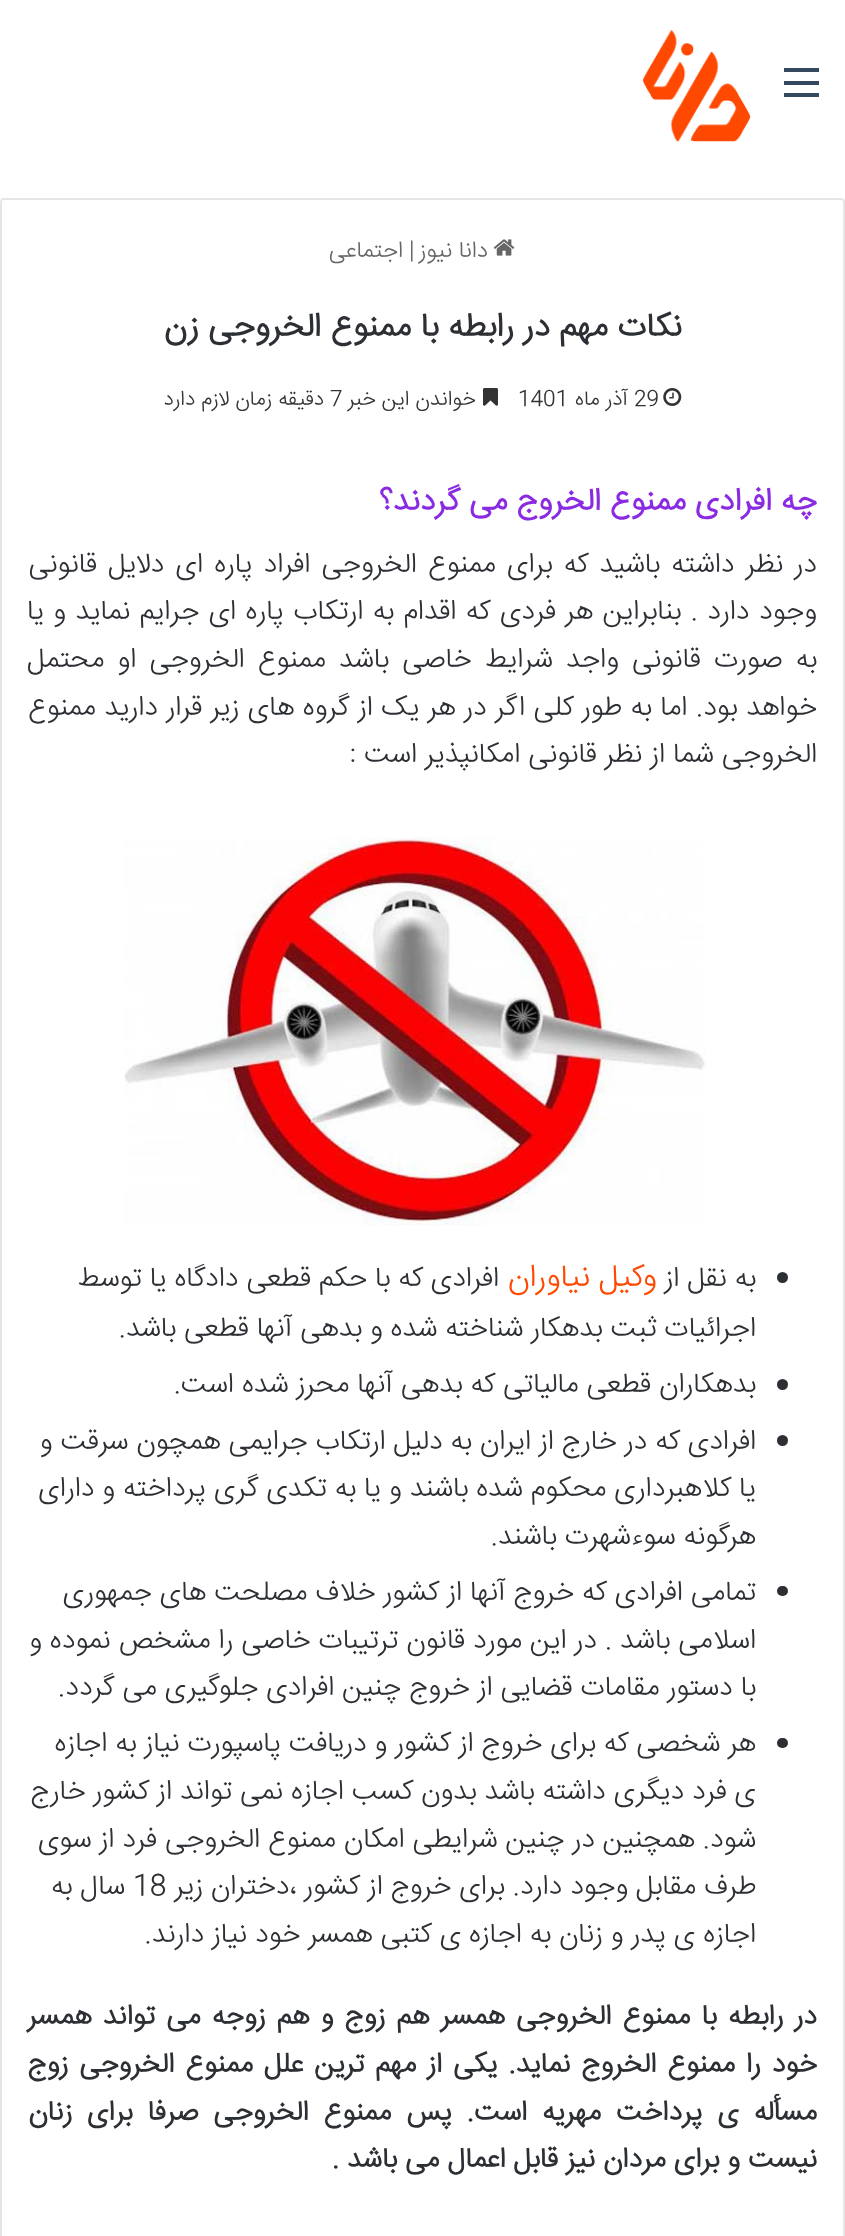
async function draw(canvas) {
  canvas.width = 845
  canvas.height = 2236
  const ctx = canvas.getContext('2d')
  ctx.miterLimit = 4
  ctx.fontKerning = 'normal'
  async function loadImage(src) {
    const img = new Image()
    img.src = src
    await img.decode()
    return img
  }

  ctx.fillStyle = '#fff'
  ctx.fillRect(0, 0, 845, 2236)
  ctx.fillStyle = '#34495e'
  ctx.fillRect(784, 81, 35, 4)
  ctx.fillRect(784, 68, 35, 4)
  ctx.fillRect(784, 93, 35, 4)
  ctx.drawImage(await loadImage('image0.png'), 642, 30, 109, 112)
  ctx.beginPath()
  ctx.roundRect(1, 199, 843, 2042, 3)
  ctx.strokeStyle = '#e6e6e6'
  ctx.lineWidth = 2
  ctx.stroke()
  ctx.drawImage(await loadImage('image1.png'), 493, 239, 22, 17)
  ctx.direction = 'rtl'
  ctx.font = '300 23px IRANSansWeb'
  ctx.fillStyle = '#666'
  ctx.fillText('دانا نیوز', 488, 257)
  ctx.direction = 'ltr'
  ctx.fillText('|', 409, 257)
  ctx.direction = 'rtl'
  ctx.fillText('اجتماعی', 403, 257)
  ctx.font = 'bold 33.25px IRANSansWeb'
  ctx.fillStyle = '#2c2f34'
  ctx.fillText('نکات مهم در رابطه با ممنوع الخروجی زن', 682, 336)
  ctx.drawImage(await loadImage('image2.png'), 663, 388, 19, 18)
  ctx.direction = 'ltr'
  ctx.font = '300 21px IRANSansWeb'
  ctx.fillStyle = '#333'
  ctx.fillText('29', 634, 405)
  ctx.direction = 'rtl'
  ctx.fillText('آذر ماه', 628, 405)
  ctx.direction = 'ltr'
  ctx.fillText('1401', 518, 405)
  ctx.drawImage(await loadImage('image3.png'), 483, 388, 15, 18)
  ctx.direction = 'rtl'
  ctx.fillText('خواندن این خبر', 476, 405)
  ctx.direction = 'ltr'
  ctx.fillText('7', 330, 405)
  ctx.direction = 'rtl'
  ctx.fillText('دقیقه زمان لازم دارد', 324, 405)
  ctx.font = 'bold 31.5px IRANSansWeb'
  ctx.fillStyle = '#8a2be2'
  ctx.fillText('چه افرادی ممنوع الخروج می گردند؟', 817, 510)
  ctx.wordSpacing = '3.25px'
  ctx.font = '300 28px IRANSansWeb'
  ctx.fillStyle = '#2c2f34'
  ctx.fillText('در نظر داشته باشید که برای ممنوع الخروجی افراد پاره ای دلایل قانونی', 817, 572)
  ctx.wordSpacing = '1.5px'
  ctx.fillText('وجود دارد . بنابراین هر فردی که اقدام به ارتکاب پاره ای جرایم نماید و یا', 817, 619)
  ctx.wordSpacing = '5.25px'
  ctx.fillText('به صورت قانونی واجد شرایط خاصی باشد ممنوع الخروجی او محتمل', 817, 667)
  ctx.wordSpacing = '0.6px'
  ctx.fillText('خواهد بود. اما به طور کلی اگر در هر یک از گروه های زیر قرار دارید ممنوع', 817, 715)
  ctx.wordSpacing = '0px'
  ctx.fillText('الخروجی شما از نظر قانونی امکانپذیر است :', 817, 762)
  ctx.drawImage(await loadImage('image4.png'), 124, 837, 582, 389)
  ctx.beginPath()
  ctx.arc(782.5, 1277.5, 5.5, 0, 2 * Math.PI)
  ctx.fill()
  ctx.fillText('به نقل از', 756, 1286)
  ctx.font = '300 31.5px IRANSansWeb'
  ctx.fillStyle = '#ff4800'
  ctx.fillText('وکیل نیاوران', 657, 1286)
  ctx.font = '300 28px IRANSansWeb'
  ctx.fillStyle = '#2c2f34'
  ctx.fillText('افرادی که با حکم قطعی دادگاه یا توسط', 499, 1286)
  ctx.fillText('اجرائیات ثبت بدهکار شناخته شده و بدهی آنها قطعی باشد.', 756, 1336)
  ctx.beginPath()
  ctx.arc(782.5, 1384.5, 5.5, 0, 2 * Math.PI)
  ctx.fill()
  ctx.fillText('بدهکاران قطعی مالیاتی که بدهی آنها محرز شده است.', 756, 1392)
  ctx.beginPath()
  ctx.arc(782.5, 1440.5, 5.5, 0, 2 * Math.PI)
  ctx.fill()
  ctx.fillText('افرادی که در خارج از ایران به دلیل ارتکاب جرایمی همچون سرقت و', 756, 1449)
  ctx.fillText('یا کلاهبرداری محکوم شده باشند و یا به تکدی گری پرداخته و دارای', 756, 1496)
  ctx.fillText('هرگونه سوءشهرت باشند.', 756, 1544)
  ctx.beginPath()
  ctx.roundRect(777, 1586, 11, 10, 5)
  ctx.fill()
  ctx.fillText('تمامی افرادی که خروج آنها از کشور خلاف مصلحت های جمهوری', 756, 1600)
  ctx.fillText('اسلامی باشد . در این مورد قانون ترتیبات خاصی را مشخص نموده و', 756, 1648)
  ctx.fillText('با دستور مقامات قضایی از خروج چنین افرادی جلوگیری می گردد.', 756, 1695)
  ctx.beginPath()
  ctx.roundRect(777, 1738, 11, 10, 5)
  ctx.fill()
  ctx.fillText('هر شخصی که برای خروج از کشور و دریافت پاسپورت نیاز به اجازه', 756, 1751)
  ctx.fillText('ی فرد دیگری داشته باشد بدون کسب اجازه نمی تواند از کشور خارج', 756, 1799)
  ctx.fillText('شود. همچنین در چنین شرایطی امکان ممنوع الخروجی فرد از سوی', 756, 1847)
  ctx.fillText('طرف مقابل وجود دارد. برای خروج از کشور ،دختران زیر', 756, 1894)
  ctx.direction = 'ltr'
  ctx.fillText('18', 133, 1894)
  ctx.direction = 'rtl'
  ctx.fillText('سال به', 125, 1894)
  ctx.fillText('اجازه ی پدر و زنان به اجازه ی کتبی همسر خود نیاز دارند.', 756, 1942)
  ctx.wordSpacing = '3.25px'
  ctx.font = 'bold 28px IRANSansWeb'
  ctx.fillText('در رابطه با ممنوع الخروجی همسر هم زوج و هم زوجه می تواند همسر', 817, 2024)
  ctx.wordSpacing = '3px'
  ctx.fillText('خود را ممنوع الخروج نماید. یکی از مهم ترین علل ممنوع الخروجی زوج', 817, 2072)
  ctx.wordSpacing = '7px'
  ctx.fillText('مسأله ی پرداخت مهریه است. پس ممنوع الخروجی صرفا برای زنان', 817, 2120)
  ctx.wordSpacing = '0px'
  ctx.fillText('نیست و برای مردان نیز قابل اعمال می باشد', 817, 2167)
  ctx.direction = 'ltr'
  ctx.fillText('.', 332, 2167)
}

draw(document.querySelector('canvas'))
